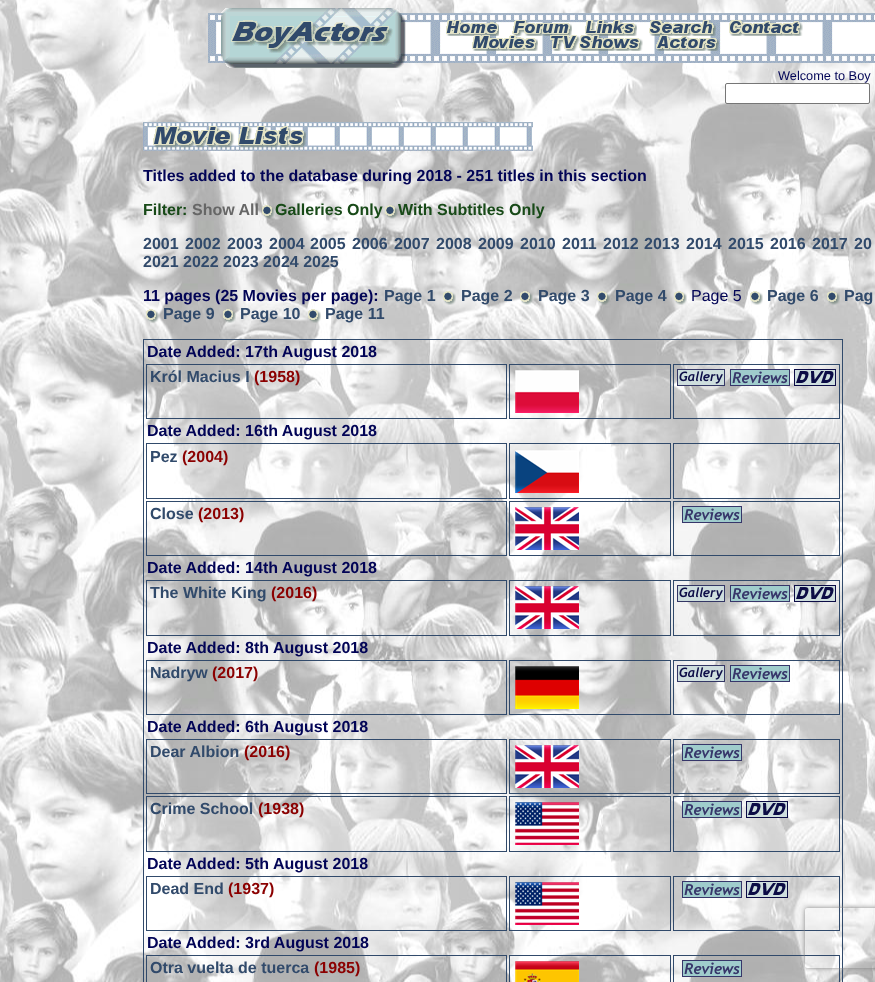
async function draw(canvas) {
  canvas.width = 875
  canvas.height = 982
  const ctx = canvas.getContext('2d')
  ctx.miterLimit = 4
  ctx.fontKerning = 'normal'
  async function loadImage(src) {
    const img = new Image()
    img.src = src
    await img.decode()
    return img
  }

  ctx.fillStyle = '#fff'
  ctx.fillRect(0, 0, 875, 982)
  ctx.drawImage(await loadImage('image0.png'), 0, 0, 875, 982)
  ctx.drawImage(await loadImage('image1.png'), 208, 8, 667, 60)
  ctx.drawImage(await loadImage('image2.png'), 446, 20, 53, 16)
  ctx.drawImage(await loadImage('image3.png'), 512, 20, 60, 16)
  ctx.drawImage(await loadImage('image4.png'), 585, 20, 52, 16)
  ctx.drawImage(await loadImage('image5.png'), 649, 20, 67, 16)
  ctx.drawImage(await loadImage('image6.png'), 729, 20, 74, 16)
  ctx.drawImage(await loadImage('image7.png'), 472, 35, 66, 16)
  ctx.drawImage(await loadImage('image8.png'), 550, 35, 93, 16)
  ctx.drawImage(await loadImage('image9.png'), 656, 35, 63, 16)
  ctx.font = '12.75px Liberation Sans'
  ctx.fillStyle = '#020456'
  ctx.fillText('Welcome to Boy', 778, 80)
  ctx.fillStyle = '#fff'
  ctx.beginPath()
  ctx.roundRect(725.5, 83.5, 144, 20, 1.5)
  ctx.fill()
  ctx.strokeStyle = '#767676'
  ctx.stroke()
  ctx.drawImage(await loadImage('image10.png'), 143, 122, 390, 29)
  ctx.drawImage(await loadImage('image11.png'), 153, 126, 153, 23)
  ctx.font = 'bold 16px Liberation Sans'
  ctx.fillStyle = '#020456'
  ctx.fillText('Titles added to the database during 2018 - 251 titles in this section', 143, 181)
  ctx.fillStyle = '#184a18'
  ctx.fillText('Filter:', 143, 215)
  ctx.fillStyle = '#666'
  ctx.fillText('Show All', 192, 215)
  ctx.drawImage(await loadImage('image12.png'), 262, 205, 13, 14)
  ctx.fillStyle = '#184a18'
  ctx.fillText('Galleries Only', 275, 215)
  ctx.drawImage(await loadImage('image13.png'), 385, 205, 13, 14)
  ctx.fillText('With Subtitles Only', 398, 215)
  ctx.fillStyle = '#314a6b'
  ctx.fillText('2001', 143, 249)
  ctx.fillText('2002', 185, 249)
  ctx.fillText('2003', 227, 249)
  ctx.fillText('2004', 269, 249)
  ctx.fillText('2005', 310, 249)
  ctx.fillText('2006', 352, 249)
  ctx.fillText('2007', 394, 249)
  ctx.fillText('2008', 436, 249)
  ctx.fillText('2009', 478, 249)
  ctx.fillText('2010', 520, 249)
  ctx.fillText('2011', 562, 249)
  ctx.fillText('2012', 603, 249)
  ctx.fillText('2013', 644, 249)
  ctx.fillText('2014', 686, 249)
  ctx.fillText('2015', 728, 249)
  ctx.fillText('2016', 770, 249)
  ctx.fillText('2017', 812, 249)
  ctx.fillText('20', 854, 249)
  ctx.fillText('2021 2022 2023 2024 2025', 143, 267)
  ctx.fillStyle = '#020456'
  ctx.fillText('11 pages (25 Movies per page):', 143, 301)
  ctx.fillStyle = '#314a6b'
  ctx.fillText('Page 1', 384, 301)
  ctx.drawImage(await loadImage('image14.png'), 443, 291, 13, 14)
  ctx.fillText('Page 2', 461, 301)
  ctx.drawImage(await loadImage('image15.png'), 520, 291, 13, 14)
  ctx.fillText('Page 3', 538, 301)
  ctx.drawImage(await loadImage('image16.png'), 597, 291, 13, 14)
  ctx.fillText('Page 4', 615, 301)
  ctx.drawImage(await loadImage('image17.png'), 674, 291, 13, 14)
  ctx.font = '16px Liberation Sans'
  ctx.fillStyle = '#020456'
  ctx.fillText('Page 5', 691, 301)
  ctx.drawImage(await loadImage('image18.png'), 750, 291, 13, 14)
  ctx.font = 'bold 16px Liberation Sans'
  ctx.fillStyle = '#314a6b'
  ctx.fillText('Page 6', 767, 301)
  ctx.drawImage(await loadImage('image19.png'), 827, 291, 13, 14)
  ctx.fillText('Pag', 844, 301)
  ctx.drawImage(await loadImage('image20.png'), 146, 309, 13, 14)
  ctx.fillText('Page 9', 163, 319)
  ctx.drawImage(await loadImage('image21.png'), 223, 309, 13, 14)
  ctx.fillText('Page 10', 240, 319)
  ctx.drawImage(await loadImage('image22.png'), 308, 309, 13, 14)
  ctx.fillText('Page 11', 325, 319)
  ctx.strokeStyle = '#314a6b'
  ctx.strokeRect(143.5, 339.5, 699, 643)
  ctx.fillStyle = '#020456'
  ctx.fillText('Date Added: 17th August 2018', 147, 357)
  ctx.strokeRect(146.5, 364.5, 360, 54)
  ctx.fillStyle = '#314a6b'
  ctx.fillText('Król Macius I', 150, 382)
  ctx.fillStyle = '#8b0000'
  ctx.fillText('(1958)', 254, 382)
  ctx.strokeRect(509.5, 364.5, 161, 54)
  ctx.drawImage(await loadImage('image23.png'), 515, 370, 64, 43)
  ctx.strokeRect(673.5, 364.5, 166, 54)
  ctx.drawImage(await loadImage('image24.png'), 677, 369, 48, 17)
  ctx.drawImage(await loadImage('image25.png'), 730, 369, 60, 17)
  ctx.drawImage(await loadImage('image26.png'), 794, 369, 42, 17)
  ctx.fillStyle = '#020456'
  ctx.fillText('Date Added: 16th August 2018', 147, 436)
  ctx.strokeRect(146.5, 443.5, 360, 55)
  ctx.fillStyle = '#314a6b'
  ctx.fillText('Pez', 150, 462)
  ctx.fillStyle = '#8b0000'
  ctx.fillText('(2004)', 182, 462)
  ctx.strokeRect(509.5, 443.5, 161, 55)
  ctx.drawImage(await loadImage('image27.png'), 515, 450, 64, 43)
  ctx.strokeRect(673.5, 443.5, 166, 55)
  ctx.strokeRect(146.5, 501.5, 360, 54)
  ctx.fillStyle = '#314a6b'
  ctx.fillText('Close', 150, 519)
  ctx.fillStyle = '#8b0000'
  ctx.fillText('(2013)', 198, 519)
  ctx.strokeRect(509.5, 501.5, 161, 54)
  ctx.drawImage(await loadImage('image28.png'), 515, 507, 64, 43)
  ctx.strokeRect(673.5, 501.5, 166, 54)
  ctx.drawImage(await loadImage('image25.png'), 682, 506, 60, 17)
  ctx.fillStyle = '#020456'
  ctx.fillText('Date Added: 14th August 2018', 147, 573)
  ctx.strokeRect(146.5, 580.5, 360, 55)
  ctx.fillStyle = '#314a6b'
  ctx.fillText('The White King', 150, 598)
  ctx.fillStyle = '#8b0000'
  ctx.fillText('(2016)', 271, 598)
  ctx.strokeRect(509.5, 580.5, 161, 55)
  ctx.drawImage(await loadImage('image29.png'), 515, 586, 64, 43)
  ctx.strokeRect(673.5, 580.5, 166, 55)
  ctx.drawImage(await loadImage('image24.png'), 677, 585, 48, 17)
  ctx.drawImage(await loadImage('image25.png'), 730, 585, 60, 17)
  ctx.drawImage(await loadImage('image26.png'), 794, 585, 42, 17)
  ctx.fillStyle = '#020456'
  ctx.fillText('Date Added: 8th August 2018', 147, 653)
  ctx.strokeRect(146.5, 660.5, 360, 54)
  ctx.fillStyle = '#314a6b'
  ctx.fillText('Nadryw', 150, 678)
  ctx.fillStyle = '#8b0000'
  ctx.fillText('(2017)', 212, 678)
  ctx.strokeRect(509.5, 660.5, 161, 54)
  ctx.drawImage(await loadImage('image30.png'), 515, 666, 64, 43)
  ctx.strokeRect(673.5, 660.5, 166, 54)
  ctx.drawImage(await loadImage('image24.png'), 677, 665, 48, 17)
  ctx.drawImage(await loadImage('image25.png'), 730, 665, 60, 17)
  ctx.fillStyle = '#020456'
  ctx.fillText('Date Added: 6th August 2018', 147, 732)
  ctx.strokeRect(146.5, 739.5, 360, 54)
  ctx.fillStyle = '#314a6b'
  ctx.fillText('Dear Albion', 150, 757)
  ctx.fillStyle = '#8b0000'
  ctx.fillText('(2016)', 244, 757)
  ctx.strokeRect(509.5, 739.5, 161, 54)
  ctx.drawImage(await loadImage('image31.png'), 515, 745, 64, 43)
  ctx.strokeRect(673.5, 739.5, 166, 54)
  ctx.drawImage(await loadImage('image25.png'), 682, 744, 60, 17)
  ctx.strokeRect(146.5, 796.5, 360, 55)
  ctx.fillStyle = '#314a6b'
  ctx.fillText('Crime School', 150, 814)
  ctx.fillStyle = '#8b0000'
  ctx.fillText('(1938)', 258, 814)
  ctx.strokeRect(509.5, 796.5, 161, 55)
  ctx.drawImage(await loadImage('image32.png'), 515, 802, 64, 43)
  ctx.strokeRect(673.5, 796.5, 166, 55)
  ctx.drawImage(await loadImage('image25.png'), 682, 801, 60, 17)
  ctx.drawImage(await loadImage('image26.png'), 746, 801, 42, 17)
  ctx.fillStyle = '#020456'
  ctx.fillText('Date Added: 5th August 2018', 147, 869)
  ctx.strokeRect(146.5, 876.5, 360, 54)
  ctx.fillStyle = '#314a6b'
  ctx.fillText('Dead End', 150, 894)
  ctx.fillStyle = '#8b0000'
  ctx.fillText('(1937)', 228, 894)
  ctx.strokeRect(509.5, 876.5, 161, 54)
  ctx.drawImage(await loadImage('image33.png'), 515, 882, 64, 43)
  ctx.strokeRect(673.5, 876.5, 166, 54)
  ctx.drawImage(await loadImage('image25.png'), 682, 881, 60, 17)
  ctx.drawImage(await loadImage('image26.png'), 746, 881, 42, 17)
  ctx.fillStyle = '#020456'
  ctx.fillText('Date Added: 3rd August 2018', 147, 948)
  ctx.strokeRect(146.5, 955.5, 360, 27)
  ctx.fillStyle = '#314a6b'
  ctx.fillText('Otra vuelta de tuerca', 150, 973)
  ctx.fillStyle = '#8b0000'
  ctx.fillText('(1985)', 314, 973)
  ctx.strokeRect(509.5, 955.5, 161, 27)
  ctx.drawImage(await loadImage('image34.png'), 515, 961, 64, 21)
  ctx.strokeRect(673.5, 955.5, 166, 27)
  ctx.drawImage(await loadImage('image25.png'), 682, 960, 60, 17)
  ctx.save()
  ctx.beginPath()
  ctx.moveTo(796, 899)
  ctx.lineTo(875, 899)
  ctx.lineTo(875, 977)
  ctx.lineTo(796, 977)
  ctx.closePath()
  ctx.moveTo(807, 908)
  ctx.lineTo(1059, 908)
  ctx.bezierCurveTo(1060, 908, 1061, 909, 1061, 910)
  ctx.lineTo(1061, 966)
  ctx.bezierCurveTo(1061, 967, 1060, 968, 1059, 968)
  ctx.lineTo(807, 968)
  ctx.bezierCurveTo(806, 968, 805, 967, 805, 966)
  ctx.lineTo(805, 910)
  ctx.bezierCurveTo(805, 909, 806, 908, 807, 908)
  ctx.closePath()
  ctx.clip('evenodd')
  ctx.fillStyle = '#808080'
  ctx.filter = 'blur(2.5px)'
  ctx.beginPath()
  ctx.roundRect(805, 908, 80, 60, 2)
  ctx.fill()
  ctx.filter = 'none'
  ctx.restore()
}

draw(document.querySelector('canvas'))
